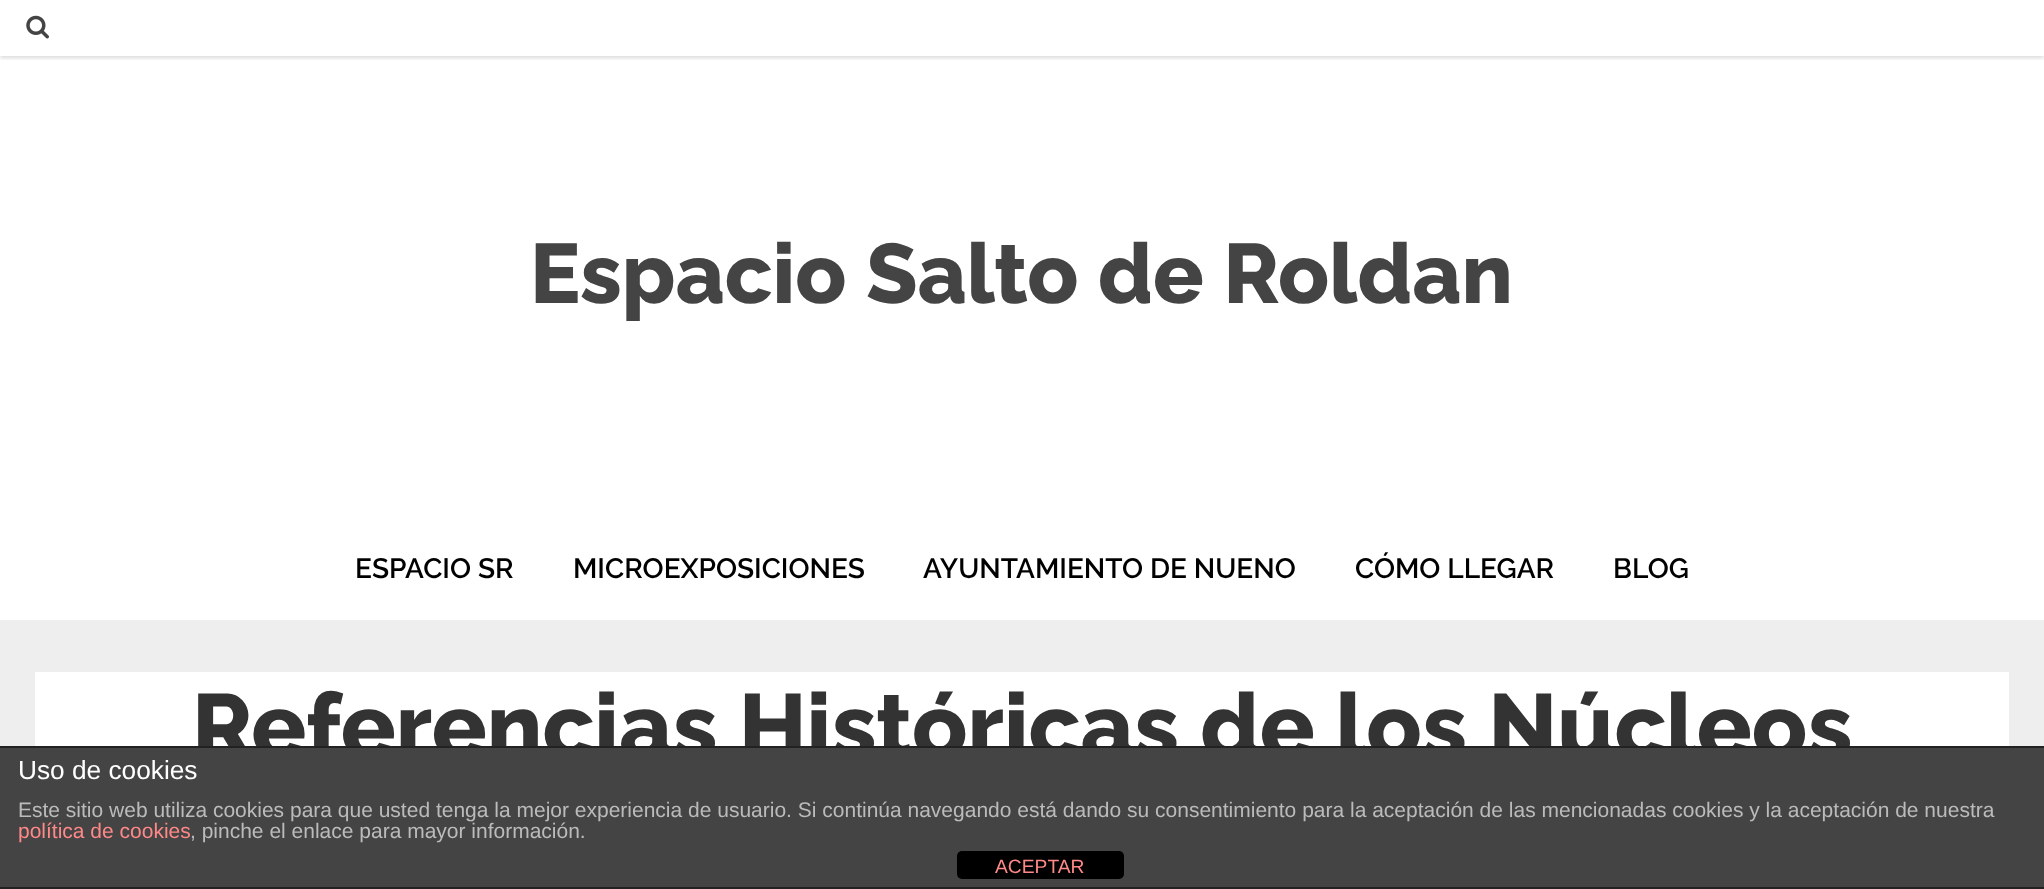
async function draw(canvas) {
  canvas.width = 2044
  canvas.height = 889
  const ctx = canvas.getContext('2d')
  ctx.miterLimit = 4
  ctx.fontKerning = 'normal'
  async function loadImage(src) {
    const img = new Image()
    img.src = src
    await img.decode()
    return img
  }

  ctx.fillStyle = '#eee'
  ctx.fillRect(0, 0, 2044, 889)
  ctx.fillStyle = '#fff'
  ctx.fillRect(0, 0, 2044, 620)
  ctx.save()
  ctx.beginPath()
  ctx.rect(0, 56, 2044, 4)
  ctx.clip()
  ctx.fillStyle = '#00000026'
  ctx.filter = 'blur(2px)'
  ctx.beginPath()
  ctx.rect(0, 2, 2044, 56)
  ctx.fill()
  ctx.filter = 'none'
  ctx.restore()
  ctx.drawImage(await loadImage('image0.png'), 26, 15, 23, 24)
  ctx.font = '800 84px Raleway'
  ctx.fillStyle = '#444'
  ctx.fillText('Espacio Salto de Roldan', 530, 303)
  ctx.font = '600 28px Raleway'
  ctx.fillStyle = '#000'
  ctx.fillText('ESPACIO SR', 355, 578)
  ctx.fillText('MICROEXPOSICIONES', 573, 578)
  ctx.fillText('AYUNTAMIENTO DE NUENO', 923, 578)
  ctx.fillText('CÓMO LLEGAR', 1355, 578)
  ctx.fillText('BLOG', 1613, 578)
  ctx.fillStyle = '#fff'
  ctx.fillRect(35, 672, 1974, 74)
  ctx.font = '800 91px Raleway'
  ctx.fillStyle = '#333'
  ctx.fillText('Referencias Históricas de los Núcleos', 192, 758)
  ctx.fillStyle = '#444'
  ctx.fillRect(0, 748, 2044, 139)
  ctx.fillStyle = '#222'
  ctx.fillRect(0, 746, 2044, 2)
  ctx.fillRect(0, 887, 2044, 2)
  ctx.font = '26.25px Liberation Sans'
  ctx.fillStyle = '#fff'
  ctx.fillText('Uso de cookies', 18, 779)
  ctx.font = '21px Liberation Sans'
  ctx.fillStyle = '#bbb'
  ctx.fillText('Este sitio web utiliza cookies para que usted tenga la mejor experiencia de usuario. Si continúa navegando está dando su consentimiento para la aceptación de las mencionadas cookies y la aceptación de nuestra', 18, 817)
  ctx.fillStyle = '#f88'
  ctx.fillText('política de cookies', 18, 838)
  ctx.fillStyle = '#bbb'
  ctx.fillText(', pinche el enlace para mayor información.', 190, 838)
  ctx.fillStyle = '#000'
  ctx.beginPath()
  ctx.roundRect(957, 851, 167, 28, 5)
  ctx.fill()
  ctx.font = '19.25px Liberation Sans'
  ctx.fillStyle = '#f88'
  ctx.fillText('ACEPTAR', 995, 873)
}

draw(document.querySelector('canvas'))
